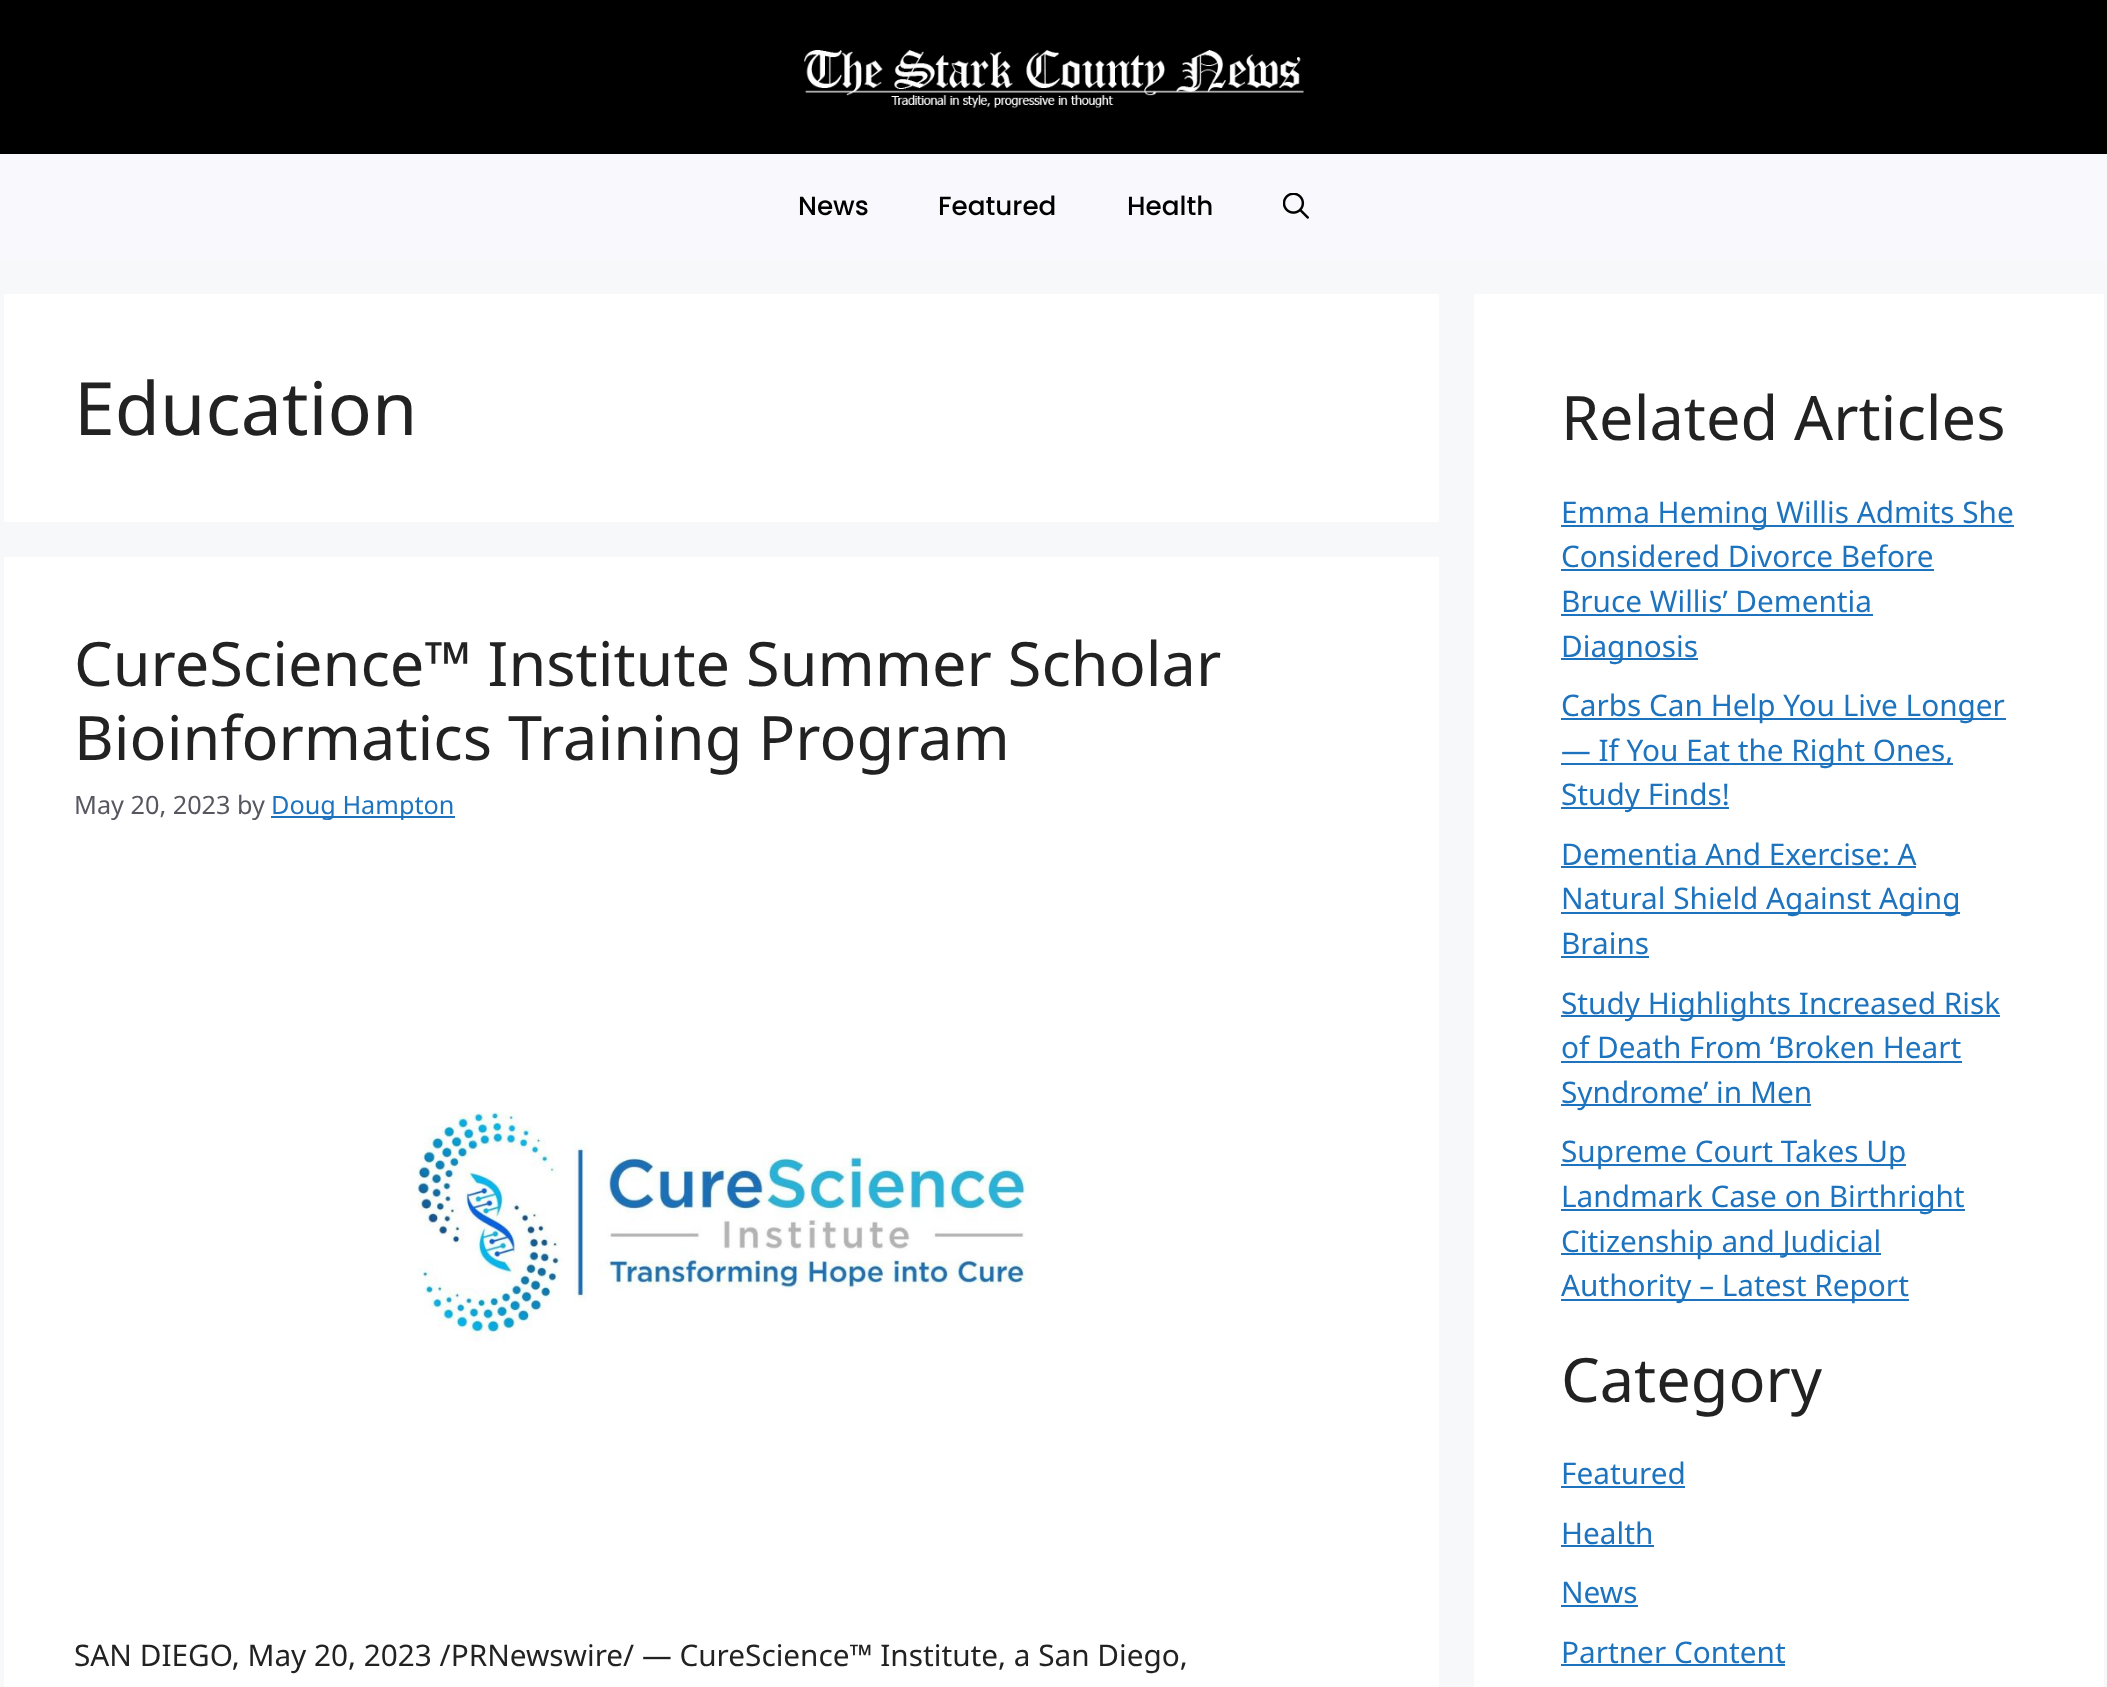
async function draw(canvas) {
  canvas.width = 2107
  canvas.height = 1687
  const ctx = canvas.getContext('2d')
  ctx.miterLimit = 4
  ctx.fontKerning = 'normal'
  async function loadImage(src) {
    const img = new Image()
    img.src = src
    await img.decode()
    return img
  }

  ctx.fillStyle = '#f7f8f9'
  ctx.fillRect(0, 0, 2107, 1687)
  ctx.fillStyle = '#000'
  ctx.fillRect(0, 0, 2107, 154)
  ctx.drawImage(await loadImage('image0.png'), 804, 50, 500, 58)
  ctx.fillStyle = '#f9f9fd'
  ctx.fillRect(0, 154, 2107, 105)
  ctx.font = '500 26.25px Poppins'
  ctx.fillStyle = '#000'
  ctx.fillText('News', 798, 215)
  ctx.fillText('Featured', 938, 215)
  ctx.fillText('Health', 1127, 215)
  ctx.drawImage(await loadImage('image1.png'), 1283, 193, 26, 26)
  ctx.fillStyle = '#fff'
  ctx.fillRect(4, 294, 1435, 228)
  ctx.font = '73.5px Noto Sans'
  ctx.fillStyle = '#222'
  ctx.fillText('Education', 74, 435)
  ctx.fillStyle = '#fff'
  ctx.fillRect(4, 557, 1435, 1130)
  ctx.font = '61.25px Noto Sans'
  ctx.fillStyle = '#222'
  ctx.fillText('CureScience™ Institute Summer Scholar', 74, 686)
  ctx.fillText('Bioinformatics Training Program', 74, 760)
  ctx.font = '25.25px Noto Sans'
  ctx.fillStyle = '#575760'
  ctx.fillText('May 20, 2023 by', 74, 814)
  ctx.fillStyle = '#1e73be'
  ctx.fillRect(271, 816, 184, 2)
  ctx.fillText('Doug Hampton', 271, 814)
  ctx.drawImage(await loadImage('image2.png'), 411, 1112, 621, 230)
  ctx.font = '29.75px Noto Sans'
  ctx.fillStyle = '#222'
  ctx.fillText('SAN DIEGO, May 20, 2023 /PRNewswire/ — CureScience™ Institute, a San Diego,', 74, 1666)
  ctx.fillStyle = '#fff'
  ctx.fillRect(1474, 294, 630, 1393)
  ctx.font = '61.25px Noto Sans'
  ctx.fillStyle = '#222'
  ctx.fillText('Related Articles', 1561, 440)
  ctx.fillStyle = '#1e73be'
  ctx.fillRect(1561, 525, 453, 2)
  ctx.font = '29.75px Noto Sans'
  ctx.fillText('Emma Heming Willis Admits She', 1561, 523)
  ctx.fillText('Considered Divorce Before', 1561, 567)
  ctx.fillRect(1561, 569, 373, 2)
  ctx.fillText('Bruce Willis’ Dementia', 1561, 612)
  ctx.fillRect(1561, 614, 312, 2)
  ctx.fillRect(1561, 658, 137, 2)
  ctx.fillText('Diagnosis', 1561, 657)
  ctx.fillRect(1561, 718, 445, 2)
  ctx.fillText('Carbs Can Help You Live Longer', 1561, 716)
  ctx.fillRect(1561, 763, 392, 2)
  ctx.fillText('— If You Eat the Right Ones,', 1561, 761)
  ctx.fillRect(1561, 807, 168, 2)
  ctx.fillText('Study Finds!', 1561, 805)
  ctx.fillText('Dementia And Exercise: A', 1561, 865)
  ctx.fillRect(1561, 866, 355, 2)
  ctx.fillRect(1561, 912, 399, 2)
  ctx.fillText('Natural Shield Against Aging', 1561, 909)
  ctx.fillText('Brains', 1561, 954)
  ctx.fillRect(1561, 956, 88, 2)
  ctx.fillRect(1561, 1015, 439, 2)
  ctx.fillText('Study Highlights Increased Risk', 1561, 1014)
  ctx.fillText('of Death From ‘Broken Heart', 1561, 1058)
  ctx.fillRect(1561, 1061, 401, 2)
  ctx.fillRect(1561, 1104, 250, 2)
  ctx.fillText('Syndrome’ in Men', 1561, 1103)
  ctx.fillRect(1561, 1164, 345, 2)
  ctx.fillText('Supreme Court Takes Up', 1561, 1162)
  ctx.fillRect(1561, 1209, 404, 2)
  ctx.fillText('Landmark Case on Birthright', 1561, 1207)
  ctx.fillRect(1561, 1253, 320, 2)
  ctx.fillText('Citizenship and Judicial', 1561, 1252)
  ctx.fillRect(1561, 1299, 348, 2)
  ctx.fillText('Authority – Latest Report', 1561, 1296)
  ctx.font = '61.25px Noto Sans'
  ctx.fillStyle = '#222'
  ctx.fillText('Category', 1561, 1402)
  ctx.font = '29.75px Noto Sans'
  ctx.fillStyle = '#1e73be'
  ctx.fillText('Featured', 1561, 1484)
  ctx.fillRect(1561, 1486, 124, 2)
  ctx.fillText('Health', 1561, 1544)
  ctx.fillRect(1561, 1545, 93, 2)
  ctx.fillText('News', 1561, 1603)
  ctx.fillRect(1561, 1605, 77, 2)
  ctx.fillText('Partner Content', 1561, 1663)
  ctx.fillRect(1561, 1664, 224, 2)
}

draw(document.querySelector('canvas'))
